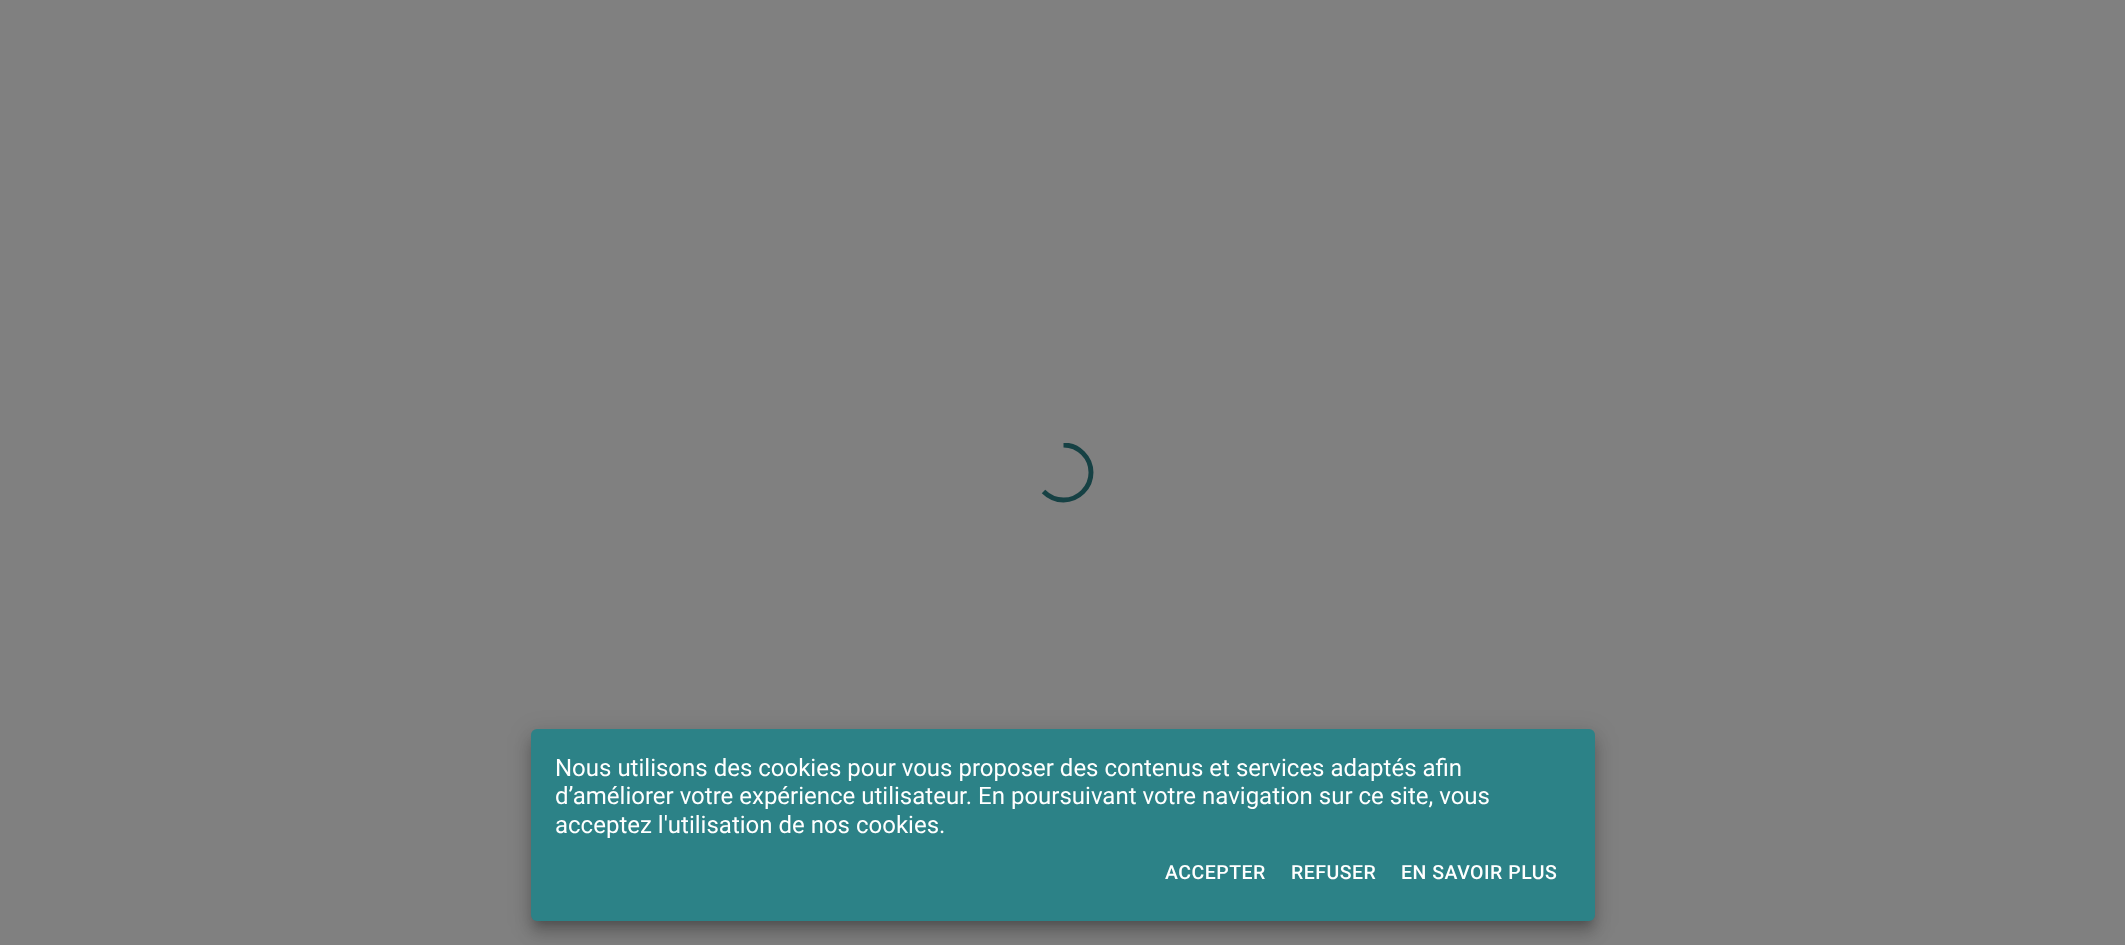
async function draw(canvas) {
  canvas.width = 2125
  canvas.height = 945
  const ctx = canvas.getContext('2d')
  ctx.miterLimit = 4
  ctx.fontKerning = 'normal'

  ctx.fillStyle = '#808080'
  ctx.fillRect(0, 0, 2125, 945)
  ctx.save()
  ctx.beginPath()
  ctx.rect(1034, 443, 60, 60)
  ctx.clip()
  ctx.beginPath()
  ctx.moveTo(1063.5, 445)
  ctx.bezierCurveTo(1078.5, 445, 1091, 457.5, 1091, 472.5)
  ctx.bezierCurveTo(1091, 487.5, 1078.5, 500, 1063.5, 500)
  ctx.bezierCurveTo(1055.5, 500, 1048.5, 496.5, 1043.5, 491.5)
  ctx.strokeStyle = '#164144'
  ctx.lineWidth = 4.9
  ctx.stroke()
  ctx.restore()
  ctx.fillStyle = '#0000001f'
  ctx.filter = 'blur(10.5px)'
  ctx.beginPath()
  ctx.roundRect(528, 731, 1070, 198, 9)
  ctx.fill()
  ctx.filter = 'none'
  ctx.fillStyle = '#00000024'
  ctx.filter = 'blur(7.5px)'
  ctx.beginPath()
  ctx.roundRect(530, 740, 1066, 195, 8)
  ctx.fill()
  ctx.filter = 'none'
  ctx.fillStyle = '#00000033'
  ctx.filter = 'blur(4px)'
  ctx.beginPath()
  ctx.roundRect(536, 741, 1054, 183, 1.5)
  ctx.fill()
  ctx.filter = 'none'
  ctx.fillStyle = '#2c8287'
  ctx.beginPath()
  ctx.roundRect(531, 729, 1064, 192, 6)
  ctx.fill()
  ctx.font = '24px Roboto'
  ctx.fillStyle = '#fff'
  ctx.fillText('Nous utilisons des cookies pour vous proposer des contenus et services adaptés afin', 555, 776)
  ctx.fillText('d’améliorer votre expérience utilisateur. En poursuivant votre navigation sur ce site, vous', 555, 804)
  ctx.fillText('acceptez l\'utilisation de nos cookies.', 555, 833)
  ctx.letterSpacing = '0.5px'
  ctx.font = '500 19.5px Roboto'
  ctx.fillText('ACCEPTER', 1165, 879)
  ctx.fillText('REFUSER', 1291, 879)
  ctx.fillText('EN SAVOIR PLUS', 1401, 879)
}

draw(document.querySelector('canvas'))
